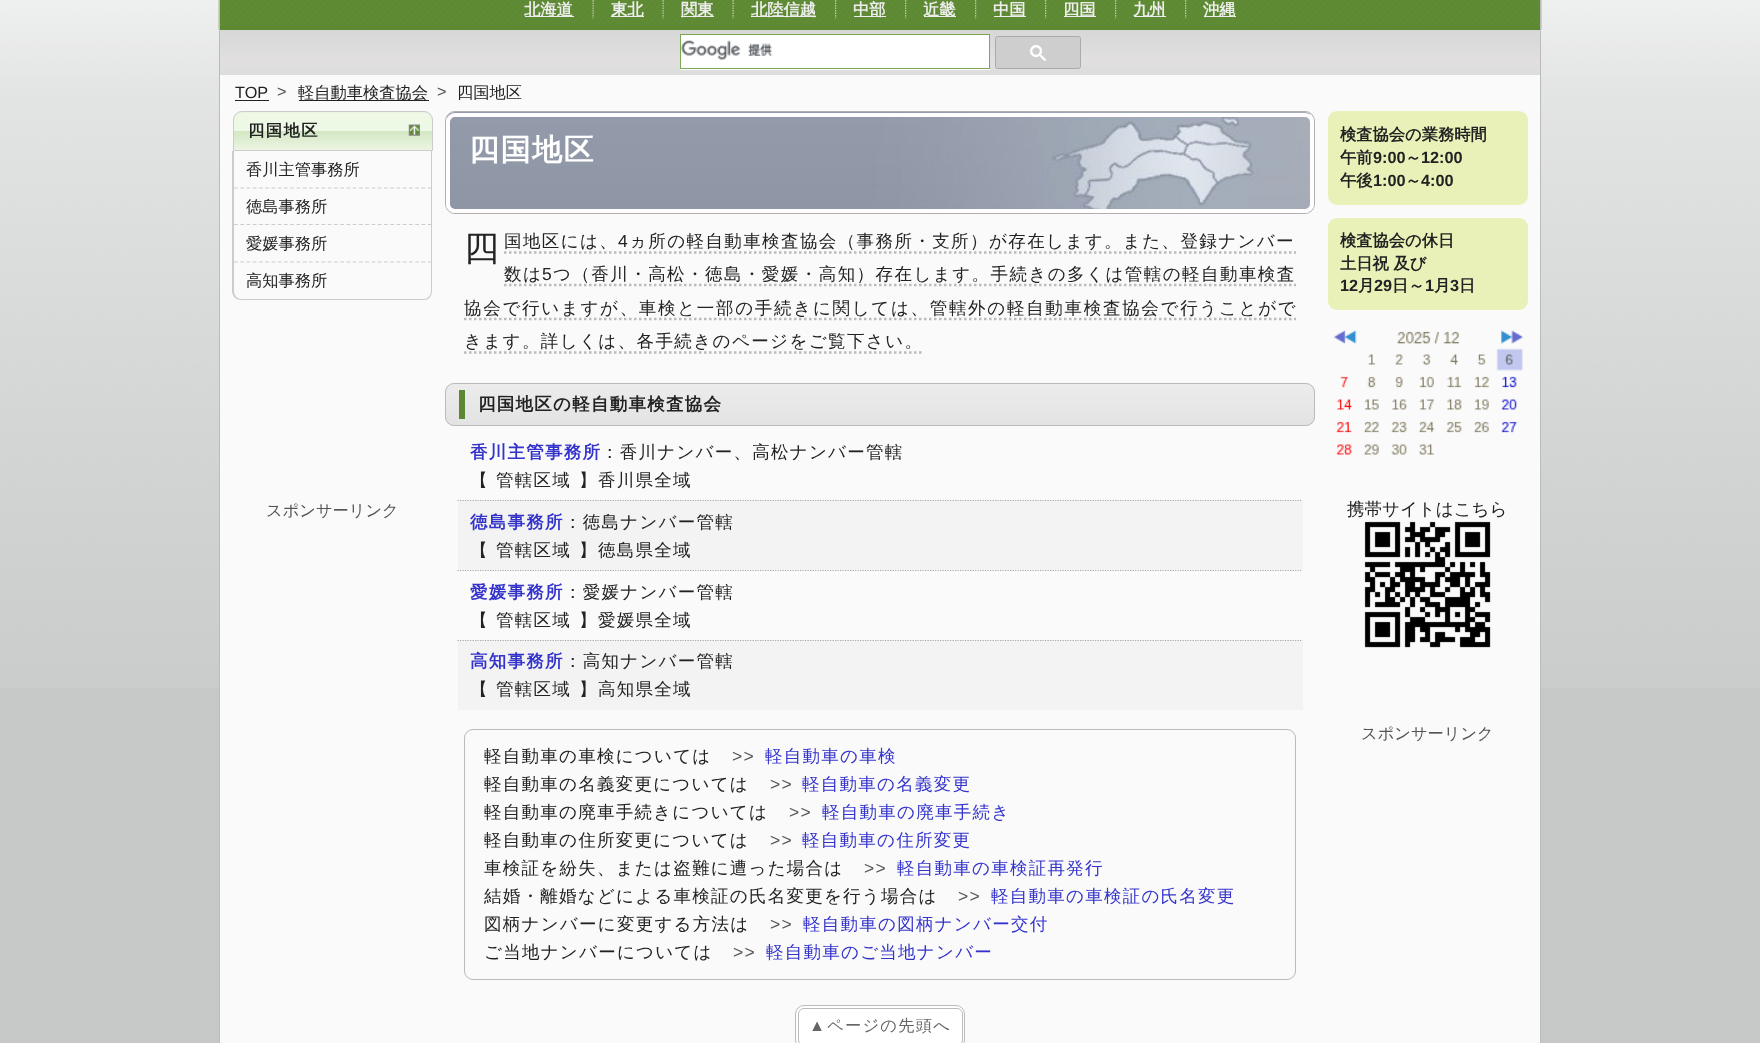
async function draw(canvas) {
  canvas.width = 1760
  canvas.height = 1043
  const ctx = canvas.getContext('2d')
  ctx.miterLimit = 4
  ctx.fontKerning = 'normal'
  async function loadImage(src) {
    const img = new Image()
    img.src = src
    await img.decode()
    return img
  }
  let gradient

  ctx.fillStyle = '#c7c9c8'
  ctx.fillRect(0, 0, 1760, 1043)
  ctx.drawImage(await loadImage('image0.png'), 0, 0, 1760, 688)
  ctx.fillStyle = '#5d8833'
  ctx.fillRect(220, 29, 1320, 1)
  ctx.drawImage(await loadImage('image1.png'), 218, 0, 1324, 30)
  ctx.fillStyle = '#bbb'
  ctx.fillRect(1540, 0, 1, 1043)
  ctx.fillRect(219, 0, 1, 1043)
  ctx.fillStyle = '#ededed'
  ctx.fillRect(525, 16, 49, 1)
  ctx.font = 'bold 16.25px WenQuanYi Zen Hei'
  ctx.fillText('北海道', 524, 15)
  ctx.drawImage(await loadImage('image2.png'), 592, 0, 2, 19)
  ctx.fillRect(611, 16, 33, 1)
  ctx.fillText('東北', 611, 15)
  ctx.drawImage(await loadImage('image3.png'), 662, 0, 2, 19)
  ctx.fillRect(681, 16, 33, 1)
  ctx.fillText('関東', 681, 15)
  ctx.drawImage(await loadImage('image4.png'), 732, 0, 2, 19)
  ctx.fillRect(751, 16, 65, 1)
  ctx.fillText('北陸信越', 751, 15)
  ctx.drawImage(await loadImage('image5.png'), 835, 0, 2, 19)
  ctx.fillRect(854, 16, 32, 1)
  ctx.fillText('中部', 853, 15)
  ctx.drawImage(await loadImage('image6.png'), 905, 0, 2, 19)
  ctx.fillRect(924, 16, 32, 1)
  ctx.fillText('近畿', 923, 15)
  ctx.drawImage(await loadImage('image7.png'), 975, 0, 2, 19)
  ctx.fillRect(994, 16, 32, 1)
  ctx.fillText('中国', 993, 15)
  ctx.drawImage(await loadImage('image8.png'), 1045, 0, 2, 19)
  ctx.fillRect(1064, 16, 32, 1)
  ctx.fillText('四国', 1063, 15)
  ctx.drawImage(await loadImage('image9.png'), 1115, 0, 2, 19)
  ctx.fillRect(1134, 16, 32, 1)
  ctx.fillText('九州', 1133, 15)
  ctx.drawImage(await loadImage('image5.png'), 1185, 0, 2, 19)
  ctx.fillRect(1204, 16, 32, 1)
  ctx.fillText('沖縄', 1203, 15)
  gradient = ctx.createLinearGradient(880, 30, 880, 75)
  gradient.addColorStop(0, '#d7d7d7')
  gradient.addColorStop(0.7, '#e1dfdf')
  gradient.addColorStop(1, '#ddd')
  ctx.fillStyle = gradient
  ctx.fillRect(220, 30, 1320, 45)
  ctx.fillStyle = '#fff'
  ctx.fillRect(680, 69, 310, 1)
  ctx.fillRect(681, 35, 308, 33)
  ctx.drawImage(await loadImage('image10.png'), 681, 40, 92, 20)
  ctx.strokeStyle = '#7ca753'
  ctx.strokeRect(680.5, 34.5, 309, 34)
  ctx.fillStyle = '#cecece'
  ctx.beginPath()
  ctx.roundRect(995.5, 36.5, 85, 32, 2)
  ctx.fill()
  ctx.strokeStyle = '#aaa'
  ctx.stroke()
  ctx.drawImage(await loadImage('image11.png'), 1030, 45, 16, 16)
  ctx.fillStyle = '#fafafa'
  ctx.fillRect(220, 75, 1320, 968)
  ctx.font = '16.25px Liberation Sans'
  ctx.fillStyle = '#222'
  ctx.fillText('TOP', 235, 98)
  ctx.fillRect(235, 100, 34, 1)
  ctx.fillStyle = '#555'
  ctx.fillText('>', 277, 97)
  ctx.fillStyle = '#222'
  ctx.fillRect(299, 100, 130, 1)
  ctx.font = '500 16.25px WenQuanYi Zen Hei'
  ctx.fillText('軽自動車検査協会', 298, 98)
  ctx.font = '16.25px Liberation Sans'
  ctx.fillStyle = '#555'
  ctx.fillText('>', 437, 97)
  ctx.font = '500 16.25px WenQuanYi Zen Hei'
  ctx.fillStyle = '#222'
  ctx.fillText('四国地区', 457, 98)
  ctx.save()
  ctx.beginPath()
  ctx.roundRect(233, 111, 200, 40, [9, 9, 0, 0])
  ctx.clip()
  gradient = ctx.createLinearGradient(333, 75, 333, 113)
  gradient.addColorStop(0, '#edf8e5')
  gradient.addColorStop(0.49, '#eef8e6')
  gradient.addColorStop(0.5, '#d2e7c2')
  gradient.addColorStop(1, '#ecf5e3')
  ctx.fillStyle = gradient
  ctx.fillRect(233, 111, 200, 2)
  gradient = ctx.createLinearGradient(333, 112, 333, 150)
  gradient.addColorStop(0, '#edf8e5')
  gradient.addColorStop(0.49, '#eef8e6')
  gradient.addColorStop(0.5, '#d2e7c2')
  gradient.addColorStop(1, '#ecf5e3')
  ctx.fillStyle = gradient
  ctx.fillRect(233, 113, 200, 37)
  ctx.restore()
  ctx.beginPath()
  ctx.roundRect(233.5, 111.5, 199, 39, [8.5, 8.5, 0, 0])
  ctx.strokeStyle = '#ccc'
  ctx.stroke()
  ctx.letterSpacing = '1.5px'
  ctx.font = 'bold 16.25px WenQuanYi Zen Hei'
  ctx.fillText('四国地区', 248, 136)
  ctx.drawImage(await loadImage('image12.png'), 408, 124, 12, 12)
  ctx.fillStyle = '#ccc'
  ctx.beginPath()
  ctx.moveTo(232, 151)
  ctx.lineTo(432, 151)
  ctx.lineTo(432, 291)
  ctx.bezierCurveTo(432, 296, 429, 300, 424, 300)
  ctx.lineTo(241, 300)
  ctx.bezierCurveTo(236, 300, 232, 296, 232, 291)
  ctx.closePath()
  ctx.moveTo(234, 151)
  ctx.lineTo(431, 151)
  ctx.lineTo(431, 291)
  ctx.bezierCurveTo(431, 295, 428, 299, 424, 299)
  ctx.lineTo(241, 299)
  ctx.bezierCurveTo(237, 299, 234, 295, 234, 291)
  ctx.closePath()
  ctx.fill('evenodd')
  ctx.letterSpacing = '0px'
  ctx.font = '500 16.25px WenQuanYi Zen Hei'
  ctx.fillStyle = '#222'
  ctx.fillText('香川主管事務所', 246, 175)
  ctx.beginPath()
  ctx.moveTo(234, 188)
  ctx.lineTo(431, 188)
  ctx.lineWidth = 1.2
  ctx.setLineDash([3.75, 2.5])
  ctx.stroke()
  ctx.fillText('徳島事務所', 246, 212)
  ctx.beginPath()
  ctx.moveTo(234, 224.5)
  ctx.lineTo(431, 224.5)
  ctx.stroke()
  ctx.fillText('愛媛事務所', 246, 249)
  ctx.beginPath()
  ctx.moveTo(234, 262)
  ctx.lineTo(431, 262)
  ctx.stroke()
  ctx.fillText('高知事務所', 246, 286)
  ctx.fillStyle = '#555'
  ctx.fillText('スポンサーリンク', 266, 516)
  ctx.beginPath()
  ctx.roundRect(445.5, 111.5, 869, 102, 9.5)
  ctx.strokeStyle = '#afafaf'
  ctx.lineWidth = 1
  ctx.setLineDash([])
  ctx.stroke()
  ctx.drawImage(await loadImage('image13.png'), 446, 112, 864, 99)
  ctx.beginPath()
  ctx.roundRect(448, 115, 864, 96, 7)
  ctx.strokeStyle = '#fffdff'
  ctx.lineWidth = 4
  ctx.stroke()
  ctx.letterSpacing = '1.5px'
  ctx.font = 'bold 30px WenQuanYi Zen Hei'
  ctx.fillStyle = '#fff'
  ctx.fillText('四国地区', 469, 160)
  ctx.letterSpacing = '1.4px'
  ctx.font = '35px Noto Sans'
  ctx.fillStyle = '#222'
  ctx.fillText('四', 464, 260)
  ctx.font = '500 17.5px WenQuanYi Zen Hei'
  ctx.fillText('国地区には、', 504, 247)
  ctx.font = '17.5px Liberation Sans'
  ctx.fillText('4', 618, 247)
  ctx.font = '500 17.5px WenQuanYi Zen Hei'
  ctx.fillText('ヵ所の軽自動車検査協会（事務所・支所）が存在します。また、登録ナンバー', 629, 247)
  ctx.beginPath()
  ctx.moveTo(504, 252.5)
  ctx.lineTo(1296, 252.5)
  ctx.strokeStyle = '#bbb'
  ctx.lineWidth = 2.5
  ctx.setLineDash([2.5, 2.5])
  ctx.stroke()
  ctx.letterSpacing = '1.45px'
  ctx.fillText('数は', 504, 280)
  ctx.beginPath()
  ctx.moveTo(504, 285)
  ctx.lineTo(1296, 285)
  ctx.stroke()
  ctx.font = '17.5px Liberation Sans'
  ctx.fillText('5', 542, 280)
  ctx.font = '500 17.5px WenQuanYi Zen Hei'
  ctx.fillText('つ（香川・高松・徳島・愛媛・高知）存在します。手続きの多くは管轄の軽自動車検査', 553, 280)
  ctx.beginPath()
  ctx.moveTo(464, 319)
  ctx.lineTo(1296, 319)
  ctx.stroke()
  ctx.letterSpacing = '1.7px'
  ctx.fillText('協会で行いますが、車検と一部の手続きに関しては、管轄外の軽自動車検査協会で行うことがで', 464, 314)
  ctx.letterSpacing = '1.4px'
  ctx.fillText('きます。詳しくは、各手続きのページをご覧下さい。', 464, 347)
  ctx.beginPath()
  ctx.moveTo(464, 352.5)
  ctx.lineTo(922.5, 352.5)
  ctx.stroke()
  ctx.save()
  ctx.beginPath()
  ctx.roundRect(445, 383, 870, 43, 9)
  ctx.clip()
  gradient = ctx.createLinearGradient(880, 384, 880, 425)
  gradient.addColorStop(0, '#ececec')
  gradient.addColorStop(1, '#e3e3e3')
  ctx.fillStyle = gradient
  ctx.fillRect(445, 384, 870, 41)
  ctx.restore()
  ctx.beginPath()
  ctx.roundRect(445.5, 383.5, 869, 42, 8.5)
  ctx.lineWidth = 1
  ctx.setLineDash([])
  ctx.stroke()
  ctx.fillStyle = '#5c8833'
  ctx.fillRect(459, 390, 6, 29)
  ctx.letterSpacing = '1.25px'
  ctx.font = 'bold 17.5px WenQuanYi Zen Hei'
  ctx.fillStyle = '#222'
  ctx.fillText('四国地区の軽自動車検査協会', 478, 410)
  ctx.fillStyle = '#33c'
  ctx.fillText('香川主管事務所', 470, 458)
  ctx.font = '500 17.5px WenQuanYi Zen Hei'
  ctx.fillStyle = '#222'
  ctx.fillText('：香川ナンバー、高松ナンバー管轄', 601, 458)
  ctx.fillText('【', 470, 486)
  ctx.fillText('管轄区域', 496, 486)
  ctx.fillText('】', 579, 486)
  ctx.fillText('香川県全域', 598, 486)
  ctx.fillStyle = '#f3f3f3'
  ctx.fillRect(458, 500, 845, 70)
  ctx.beginPath()
  ctx.moveTo(457.5, 500.5)
  ctx.lineTo(1302.5, 500.5)
  ctx.strokeStyle = '#aaa'
  ctx.lineWidth = 1.2
  ctx.setLineDash([1.25, 1.25])
  ctx.stroke()
  ctx.font = 'bold 17.5px WenQuanYi Zen Hei'
  ctx.fillStyle = '#33c'
  ctx.fillText('徳島事務所', 470, 528)
  ctx.font = '500 17.5px WenQuanYi Zen Hei'
  ctx.fillStyle = '#222'
  ctx.fillText('：徳島ナンバー管轄', 564, 528)
  ctx.fillText('【', 470, 556)
  ctx.fillText('管轄区域', 496, 556)
  ctx.fillText('】', 579, 556)
  ctx.fillText('徳島県全域', 598, 556)
  ctx.beginPath()
  ctx.moveTo(457.5, 570.5)
  ctx.lineTo(1302.5, 570.5)
  ctx.stroke()
  ctx.font = 'bold 17.5px WenQuanYi Zen Hei'
  ctx.fillStyle = '#33c'
  ctx.fillText('愛媛事務所', 470, 598)
  ctx.font = '500 17.5px WenQuanYi Zen Hei'
  ctx.fillStyle = '#222'
  ctx.fillText('：愛媛ナンバー管轄', 564, 598)
  ctx.fillText('【', 470, 626)
  ctx.fillText('管轄区域', 496, 626)
  ctx.fillText('】', 579, 626)
  ctx.fillText('愛媛県全域', 598, 626)
  ctx.fillStyle = '#f3f3f3'
  ctx.fillRect(458, 640, 845, 70)
  ctx.beginPath()
  ctx.moveTo(457.5, 640.5)
  ctx.lineTo(1302.5, 640.5)
  ctx.stroke()
  ctx.font = 'bold 17.5px WenQuanYi Zen Hei'
  ctx.fillStyle = '#33c'
  ctx.fillText('高知事務所', 470, 667)
  ctx.font = '500 17.5px WenQuanYi Zen Hei'
  ctx.fillStyle = '#222'
  ctx.fillText('：高知ナンバー管轄', 564, 667)
  ctx.fillText('【', 470, 695)
  ctx.fillText('管轄区域', 496, 695)
  ctx.fillText('】', 579, 695)
  ctx.fillText('高知県全域', 598, 695)
  ctx.beginPath()
  ctx.roundRect(464.5, 729.5, 831, 250, 8.5)
  ctx.strokeStyle = '#bbb'
  ctx.lineWidth = 1
  ctx.setLineDash([])
  ctx.stroke()
  ctx.fillText('軽自動車の車検については', 484, 762)
  ctx.font = '17.5px Liberation Sans'
  ctx.fillStyle = '#555'
  ctx.fillText('>>', 732, 762)
  ctx.font = '500 17.5px WenQuanYi Zen Hei'
  ctx.fillStyle = '#33c'
  ctx.fillText('軽自動車の車検', 765, 762)
  ctx.fillStyle = '#222'
  ctx.fillText('軽自動車の名義変更については', 484, 790)
  ctx.font = '17.5px Liberation Sans'
  ctx.fillStyle = '#555'
  ctx.fillText('>>', 770, 790)
  ctx.font = '500 17.5px WenQuanYi Zen Hei'
  ctx.fillStyle = '#33c'
  ctx.fillText('軽自動車の名義変更', 802, 790)
  ctx.fillStyle = '#222'
  ctx.fillText('軽自動車の廃車手続きについては', 484, 818)
  ctx.font = '17.5px Liberation Sans'
  ctx.fillStyle = '#555'
  ctx.fillText('>>', 789, 818)
  ctx.font = '500 17.5px WenQuanYi Zen Hei'
  ctx.fillStyle = '#33c'
  ctx.fillText('軽自動車の廃車手続き', 822, 818)
  ctx.fillStyle = '#222'
  ctx.fillText('軽自動車の住所変更については', 484, 846)
  ctx.font = '17.5px Liberation Sans'
  ctx.fillStyle = '#555'
  ctx.fillText('>>', 770, 846)
  ctx.font = '500 17.5px WenQuanYi Zen Hei'
  ctx.fillStyle = '#33c'
  ctx.fillText('軽自動車の住所変更', 802, 846)
  ctx.fillStyle = '#222'
  ctx.fillText('車検証を紛失、または盗難に遭った場合は', 484, 874)
  ctx.font = '17.5px Liberation Sans'
  ctx.fillStyle = '#555'
  ctx.fillText('>>', 864, 874)
  ctx.font = '500 17.5px WenQuanYi Zen Hei'
  ctx.fillStyle = '#33c'
  ctx.fillText('軽自動車の車検証再発行', 897, 874)
  ctx.fillStyle = '#222'
  ctx.fillText('結婚・離婚などによる車検証の氏名変更を行う場合は', 484, 902)
  ctx.font = '17.5px Liberation Sans'
  ctx.fillStyle = '#555'
  ctx.fillText('>>', 958, 902)
  ctx.font = '500 17.5px WenQuanYi Zen Hei'
  ctx.fillStyle = '#33c'
  ctx.fillText('軽自動車の車検証の氏名変更', 991, 902)
  ctx.fillStyle = '#222'
  ctx.fillText('図柄ナンバーに変更する方法は', 484, 930)
  ctx.font = '17.5px Liberation Sans'
  ctx.fillStyle = '#555'
  ctx.fillText('>>', 770, 930)
  ctx.font = '500 17.5px WenQuanYi Zen Hei'
  ctx.fillStyle = '#33c'
  ctx.fillText('軽自動車の図柄ナンバー交付', 803, 930)
  ctx.fillStyle = '#222'
  ctx.fillText('ご当地ナンバーについては', 484, 958)
  ctx.font = '17.5px Liberation Sans'
  ctx.fillStyle = '#555'
  ctx.fillText('>>', 733, 958)
  ctx.font = '500 17.5px WenQuanYi Zen Hei'
  ctx.fillStyle = '#33c'
  ctx.fillText('軽自動車のご当地ナンバー', 766, 958)
  ctx.fillStyle = '#fff'
  ctx.beginPath()
  ctx.roundRect(795.5, 1005.5, 169, 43, 8.5)
  ctx.fill()
  ctx.stroke()
  ctx.beginPath()
  ctx.roundRect(798.5, 1008.5, 164, 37, 5.5)
  ctx.stroke()
  ctx.font = '16.25px Liberation Sans'
  ctx.fillStyle = '#666'
  ctx.fillText('▲', 809, 1031)
  ctx.font = '500 16.25px WenQuanYi Zen Hei'
  ctx.fillText('ページの先頭へ', 827, 1031)
  ctx.fillStyle = '#e9f1b9'
  ctx.beginPath()
  ctx.roundRect(1328, 111, 200, 94, 9)
  ctx.fill()
  ctx.letterSpacing = '0px'
  ctx.font = 'bold 16.25px WenQuanYi Zen Hei'
  ctx.fillStyle = '#222'
  ctx.fillText('検査協会の業務時間', 1340, 140)
  ctx.fillText('午前', 1340, 163)
  ctx.font = 'bold 16.25px Liberation Sans'
  ctx.fillText('9:00', 1373, 163)
  ctx.font = 'bold 16.25px WenQuanYi Zen Hei'
  ctx.fillText('～', 1405, 163)
  ctx.font = 'bold 16.25px Liberation Sans'
  ctx.fillText('12:00', 1421, 163)
  ctx.font = 'bold 16.25px WenQuanYi Zen Hei'
  ctx.fillText('午後', 1340, 186)
  ctx.font = 'bold 16.25px Liberation Sans'
  ctx.fillText('1:00', 1373, 186)
  ctx.font = 'bold 16.25px WenQuanYi Zen Hei'
  ctx.fillText('～', 1405, 186)
  ctx.font = 'bold 16.25px Liberation Sans'
  ctx.fillText('4:00', 1421, 186)
  ctx.fillStyle = '#e9f1b9'
  ctx.beginPath()
  ctx.roundRect(1328, 218, 200, 92, 9)
  ctx.fill()
  ctx.font = 'bold 16.25px WenQuanYi Zen Hei'
  ctx.fillStyle = '#222'
  ctx.fillText('検査協会の休日', 1340, 246)
  ctx.fillText('土日祝 及び', 1340, 269)
  ctx.font = 'bold 16.25px Liberation Sans'
  ctx.fillText('12', 1340, 291)
  ctx.font = 'bold 16.25px WenQuanYi Zen Hei'
  ctx.fillText('月', 1358, 291)
  ctx.font = 'bold 16.25px Liberation Sans'
  ctx.fillText('29', 1374, 291)
  ctx.font = 'bold 16.25px WenQuanYi Zen Hei'
  ctx.fillText('日～', 1392, 291)
  ctx.font = 'bold 16.25px Liberation Sans'
  ctx.fillText('1', 1425, 291)
  ctx.font = 'bold 16.25px WenQuanYi Zen Hei'
  ctx.fillText('月', 1434, 291)
  ctx.font = 'bold 16.25px Liberation Sans'
  ctx.fillText('3', 1450, 291)
  ctx.font = 'bold 16.25px WenQuanYi Zen Hei'
  ctx.fillText('日', 1459, 291)
  ctx.drawImage(await loadImage('image14.png'), 1333, 330, 190, 125)
  ctx.drawImage(await loadImage('image15.png'), 1364, 521, 127, 127)
  ctx.font = '500 17.5px WenQuanYi Zen Hei'
  ctx.fillText('携帯サイトはこちら', 1347, 515)
  ctx.font = '500 16.25px WenQuanYi Zen Hei'
  ctx.fillStyle = '#555'
  ctx.fillText('スポンサーリンク', 1361, 739)
}

draw(document.querySelector('canvas'))
